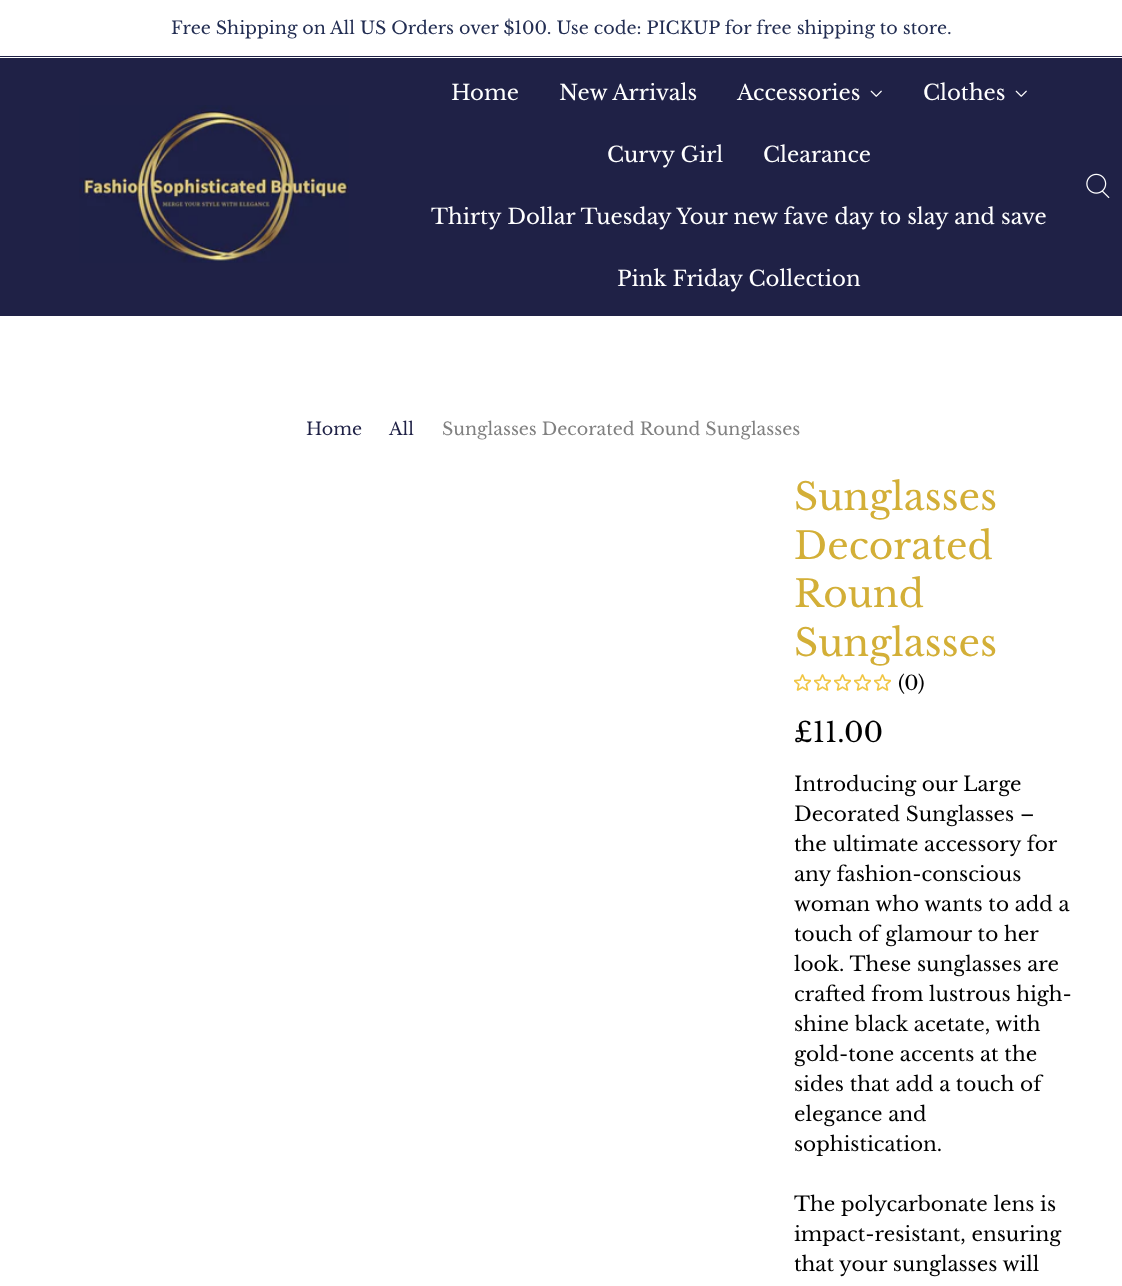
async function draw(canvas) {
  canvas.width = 1122
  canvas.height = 1286
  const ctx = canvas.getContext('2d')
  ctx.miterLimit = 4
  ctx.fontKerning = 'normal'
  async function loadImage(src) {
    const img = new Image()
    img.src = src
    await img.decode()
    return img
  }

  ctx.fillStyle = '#fff'
  ctx.fillRect(0, 0, 1122, 1286)
  ctx.font = '17.5px Libre Baskerville'
  ctx.fillStyle = '#222d52'
  ctx.fillText('Free Shipping on All US Orders over $100. Use code: PICKUP for free shipping to store.', 171, 34)
  ctx.fillStyle = '#1f2146'
  ctx.fillRect(0, 56, 1122, 1)
  ctx.fillRect(0, 58, 1122, 258)
  ctx.drawImage(await loadImage('image0.png'), 79, 105, 270, 158)
  ctx.font = '21.25px Libre Baskerville'
  ctx.fillStyle = '#fff'
  ctx.fillText('Home', 451, 100)
  ctx.fillText('New Arrivals', 559, 100)
  ctx.fillText('Accessories', 737, 100)
  ctx.drawImage(await loadImage('image1.png'), 870, 90, 12, 7)
  ctx.fillText('Clothes', 923, 100)
  ctx.drawImage(await loadImage('image1.png'), 1015, 90, 12, 7)
  ctx.fillText('Curvy Girl', 607, 162)
  ctx.fillText('Clearance', 763, 162)
  ctx.fillText('Thirty Dollar Tuesday Your new fave day to slay and save', 431, 224)
  ctx.fillText('Pink Friday Collection', 617, 286)
  ctx.drawImage(await loadImage('image2.png'), 1086, 173, 24, 26)
  ctx.font = '17.5px Libre Baskerville'
  ctx.fillStyle = '#1f2146'
  ctx.fillText('Home', 306, 435)
  ctx.fillText('All', 389, 435)
  ctx.fillStyle = '#808080'
  ctx.fillText('Sunglasses Decorated Round Sunglasses', 442, 435)
  ctx.font = '37.5px Libre Baskerville'
  ctx.fillStyle = '#d3af37'
  ctx.fillText('Sunglasses', 794, 510)
  ctx.fillText('Decorated', 794, 559)
  ctx.fillText('Round', 794, 607)
  ctx.fillText('Sunglasses', 794, 656)
  ctx.drawImage(await loadImage('image3.png'), 794, 674, 17, 17)
  ctx.drawImage(await loadImage('image3.png'), 814, 674, 17, 17)
  ctx.drawImage(await loadImage('image3.png'), 834, 674, 17, 17)
  ctx.drawImage(await loadImage('image3.png'), 854, 674, 17, 17)
  ctx.drawImage(await loadImage('image3.png'), 874, 674, 17, 17)
  ctx.font = '20px Libre Baskerville'
  ctx.fillStyle = '#000'
  ctx.fillText('(0)', 898, 690)
  ctx.font = '27.5px Libre Baskerville'
  ctx.fillText('£11.00', 794, 742)
  ctx.font = '20px Libre Baskerville'
  ctx.fillText('Introducing our Large', 794, 791)
  ctx.fillText('Decorated Sunglasses –', 794, 821)
  ctx.fillText('the ultimate accessory for', 794, 851)
  ctx.fillText('any fashion-conscious', 794, 881)
  ctx.fillText('woman who wants to add a', 794, 911)
  ctx.fillText('touch of glamour to her', 794, 941)
  ctx.fillText('look. These sunglasses are', 794, 971)
  ctx.fillText('crafted from lustrous high-', 794, 1001)
  ctx.fillText('shine black acetate, with', 794, 1031)
  ctx.fillText('gold-tone accents at the', 794, 1061)
  ctx.fillText('sides that add a touch of', 794, 1091)
  ctx.fillText('elegance and', 794, 1121)
  ctx.fillText('sophistication.', 794, 1151)
  ctx.fillText('The polycarbonate lens is', 794, 1211)
  ctx.fillText('impact-resistant, ensuring', 794, 1241)
  ctx.fillText('that your sunglasses will', 794, 1271)
}

draw(document.querySelector('canvas'))
